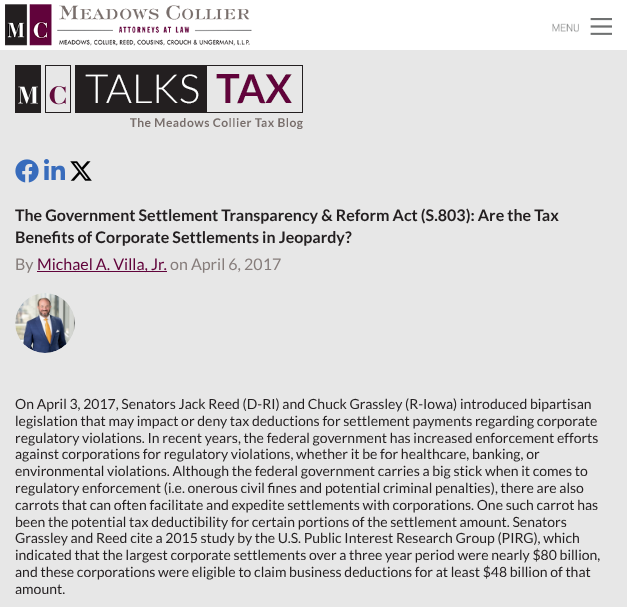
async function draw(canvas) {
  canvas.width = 627
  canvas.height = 607
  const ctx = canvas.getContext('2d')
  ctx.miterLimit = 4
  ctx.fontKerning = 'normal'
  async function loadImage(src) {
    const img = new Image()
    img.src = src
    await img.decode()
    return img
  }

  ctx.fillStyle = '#e7e7e7'
  ctx.fillRect(0, 0, 627, 607)
  ctx.fillStyle = '#fff'
  ctx.fillRect(0, 0, 627, 50)
  ctx.drawImage(await loadImage('image0.png'), 5, 4, 247, 42)
  ctx.drawImage(await loadImage('image1.png'), 552, 18, 60, 17)
  ctx.drawImage(await loadImage('image2.png'), 15, 65, 288, 64)
  ctx.drawImage(await loadImage('image3.png'), 15, 159, 24, 24)
  ctx.drawImage(await loadImage('image4.png'), 44, 159, 21, 21)
  ctx.drawImage(await loadImage('image5.png'), 70, 161, 22, 20)
  ctx.font = 'bold 16px Lato'
  ctx.fillStyle = '#231f20'
  ctx.fillText('The Government Settlement Transparency & Reform Act (S.803): Are the Tax', 15, 221)
  ctx.fillText('Benefits of Corporate Settlements in Jeopardy?', 15, 243)
  ctx.font = '16px Lato'
  ctx.fillStyle = '#867d7b'
  ctx.fillText('By', 15, 270)
  ctx.fillStyle = '#61033b'
  ctx.fillRect(37, 271, 130, 1)
  ctx.fillText('Michael A. Villa, Jr.', 37, 270)
  ctx.fillStyle = '#867d7b'
  ctx.fillText('on April 6, 2017', 170, 270)
  ctx.drawImage(await loadImage('image6.png'), 15, 293, 60, 60)
  ctx.font = '14px Lato'
  ctx.fillStyle = '#231f20'
  ctx.fillText('On April 3, 2017, Senators Jack Reed (D-RI) and Chuck Grassley (R-Iowa) introduced bipartisan', 15, 409)
  ctx.fillText('legislation that may impact or deny tax deductions for settlement payments regarding corporate', 15, 426)
  ctx.fillText('regulatory violations. In recent years, the federal government has increased enforcement efforts', 15, 443)
  ctx.fillText('against corporations for regulatory violations, whether it be for healthcare, banking, or', 15, 459)
  ctx.fillText('environmental violations. Although the federal government carries a big stick when it comes to', 15, 476)
  ctx.fillText('regulatory enforcement (i.e. onerous civil fines and potential criminal penalties), there are also', 15, 493)
  ctx.fillText('carrots that can often facilitate and expedite settlements with corporations. One such carrot has', 15, 510)
  ctx.fillText('been the potential tax deductibility for certain portions of the settlement amount. Senators', 15, 527)
  ctx.fillText('Grassley and Reed cite a 2015 study by the U.S. Public Interest Research Group (PIRG), which', 15, 543)
  ctx.fillText('indicated that the largest corporate settlements over a three year period were nearly $80 billion,', 15, 560)
  ctx.fillText('and these corporations were eligible to claim business deductions for at least $48 billion of that', 15, 577)
  ctx.fillText('amount.', 15, 594)
}

draw(document.querySelector('canvas'))
